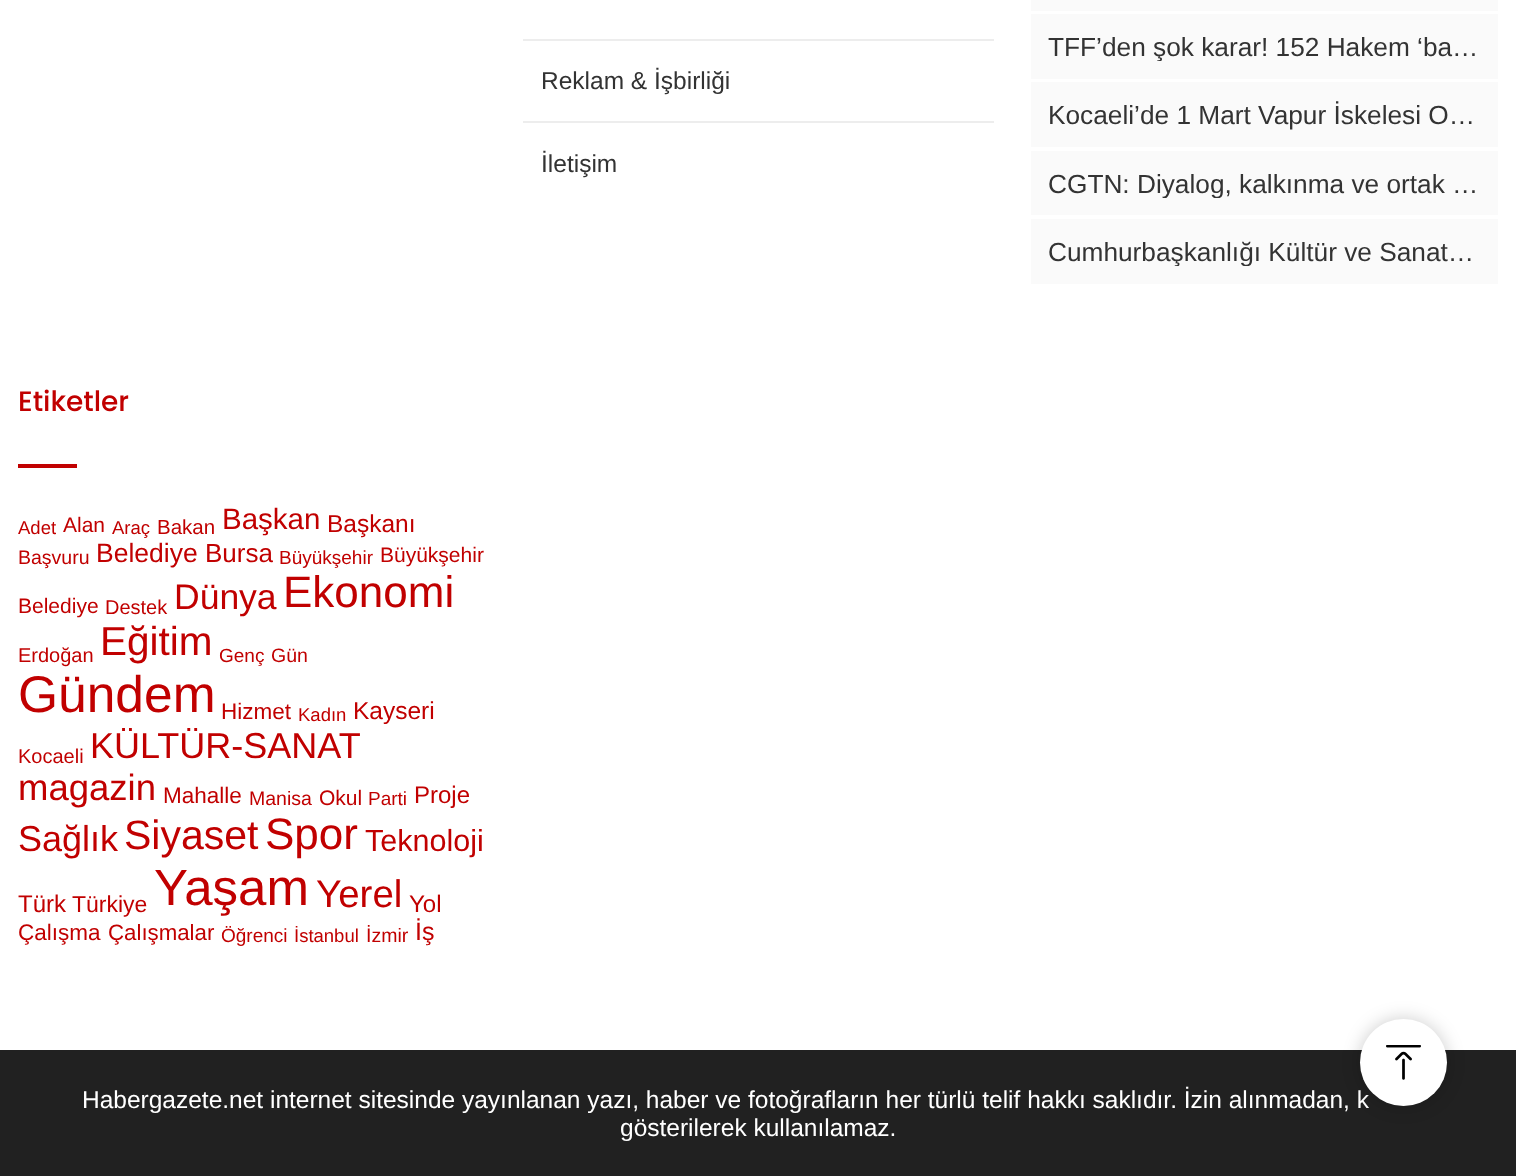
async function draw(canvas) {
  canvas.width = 1516
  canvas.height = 1176
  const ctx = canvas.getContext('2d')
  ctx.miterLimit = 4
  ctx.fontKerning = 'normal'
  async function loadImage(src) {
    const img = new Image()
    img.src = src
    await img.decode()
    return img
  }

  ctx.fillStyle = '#fff'
  ctx.fillRect(0, 0, 1516, 1176)
  ctx.fillStyle = '#ededed'
  ctx.fillRect(523, 39, 471, 2)
  ctx.font = '24.5px Liberation Sans'
  ctx.fillStyle = '#333'
  ctx.fillText('Reklam & İşbirliği', 541, 89)
  ctx.fillStyle = '#ededed'
  ctx.fillRect(523, 121, 471, 2)
  ctx.fillStyle = '#333'
  ctx.fillText('İletişim', 541, 172)
  ctx.fillStyle = '#fafafa'
  ctx.fillRect(1031, 0, 467, 11)
  ctx.fillRect(1031, 14, 467, 65)
  ctx.save()
  ctx.beginPath()
  ctx.rect(1048, 32, 433, 29)
  ctx.clip()
  ctx.font = '26.25px Liberation Sans'
  ctx.fillStyle = '#333'
  ctx.fillText('TFF’den şok karar! 152 Hakem ‘ba…', 1048, 56)
  ctx.restore()
  ctx.fillRect(1031, 82, 467, 65)
  ctx.font = '26.25px Liberation Sans'
  ctx.fillStyle = '#333'
  ctx.fillText('Kocaeli’de 1 Mart Vapur İskelesi O…', 1048, 124)
  ctx.fillStyle = '#fafafa'
  ctx.fillRect(1031, 151, 467, 64)
  ctx.save()
  ctx.beginPath()
  ctx.rect(1048, 168, 433, 30)
  ctx.clip()
  ctx.fillStyle = '#333'
  ctx.fillText('CGTN: Diyalog, kalkınma ve ortak …', 1048, 193)
  ctx.restore()
  ctx.fillRect(1031, 219, 467, 65)
  ctx.save()
  ctx.beginPath()
  ctx.rect(1048, 236, 433, 30)
  ctx.clip()
  ctx.fillStyle = '#333'
  ctx.fillText('Cumhurbaşkanlığı Kültür ve Sanat…', 1048, 261)
  ctx.restore()
  ctx.font = '500 28px Poppins'
  ctx.fillStyle = '#c10000'
  ctx.fillText('Etiketler', 18, 411)
  ctx.fillRect(18, 464, 59, 4)
  ctx.font = '18.5px Liberation Sans'
  ctx.fillText('Adet', 18, 534)
  ctx.font = '21px Liberation Sans'
  ctx.fillText('Alan', 63, 532)
  ctx.font = '18.5px Liberation Sans'
  ctx.fillText('Araç', 112, 534)
  ctx.font = '20.5px Liberation Sans'
  ctx.fillText('Bakan', 157, 534)
  ctx.font = '29.5px Liberation Sans'
  ctx.fillText('Başkan', 222, 529)
  ctx.font = '24.5px Liberation Sans'
  ctx.fillText('Başkanı', 327, 532)
  ctx.font = '19.5px Liberation Sans'
  ctx.fillText('Başvuru', 18, 564)
  ctx.font = '26.5px Liberation Sans'
  ctx.fillText('Belediye', 96, 562)
  ctx.font = '26px Liberation Sans'
  ctx.fillText('Bursa', 205, 562)
  ctx.font = '19px Liberation Sans'
  ctx.fillText('Büyükşehir', 279, 564)
  ctx.font = '21px Liberation Sans'
  ctx.fillText('Büyükşehir', 380, 562)
  ctx.fillText('Belediye', 18, 613)
  ctx.font = '20px Liberation Sans'
  ctx.fillText('Destek', 105, 614)
  ctx.font = '35.5px Liberation Sans'
  ctx.fillText('Dünya', 174, 609)
  ctx.font = '44px Liberation Sans'
  ctx.fillText('Ekonomi', 283, 607)
  ctx.font = '20px Liberation Sans'
  ctx.fillText('Erdoğan', 18, 662)
  ctx.font = '40.5px Liberation Sans'
  ctx.fillText('Eğitim', 100, 655)
  ctx.font = '19px Liberation Sans'
  ctx.fillText('Genç', 219, 662)
  ctx.font = '19.5px Liberation Sans'
  ctx.fillText('Gün', 271, 662)
  ctx.font = '51.5px Liberation Sans'
  ctx.fillText('Gündem', 18, 712)
  ctx.font = '22.5px Liberation Sans'
  ctx.fillText('Hizmet', 221, 719)
  ctx.font = '18.5px Liberation Sans'
  ctx.fillText('Kadın', 298, 721)
  ctx.font = '24.5px Liberation Sans'
  ctx.fillText('Kayseri', 353, 719)
  ctx.font = '20px Liberation Sans'
  ctx.fillText('Kocaeli', 18, 763)
  ctx.font = '36px Liberation Sans'
  ctx.fillText('KÜLTÜR-SANAT', 90, 758)
  ctx.font = '36.5px Liberation Sans'
  ctx.fillText('magazin', 18, 800)
  ctx.font = '22.5px Liberation Sans'
  ctx.fillText('Mahalle', 163, 803)
  ctx.font = '19.5px Liberation Sans'
  ctx.fillText('Manisa', 249, 805)
  ctx.font = '21px Liberation Sans'
  ctx.fillText('Okul', 319, 805)
  ctx.font = '19px Liberation Sans'
  ctx.fillText('Parti', 368, 805)
  ctx.font = '24px Liberation Sans'
  ctx.fillText('Proje', 414, 803)
  ctx.font = '36px Liberation Sans'
  ctx.fillText('Sağlık', 18, 851)
  ctx.font = '41px Liberation Sans'
  ctx.fillText('Siyaset', 124, 849)
  ctx.font = '44px Liberation Sans'
  ctx.fillText('Spor', 265, 849)
  ctx.font = '30.5px Liberation Sans'
  ctx.fillText('Teknoloji', 365, 851)
  ctx.font = '24px Liberation Sans'
  ctx.fillText('Türk', 18, 912)
  ctx.font = '23px Liberation Sans'
  ctx.fillText('Türkiye', 72, 912)
  ctx.font = '51px Liberation Sans'
  ctx.fillText('Yaşam', 154, 905)
  ctx.font = '38.5px Liberation Sans'
  ctx.fillText('Yerel', 316, 907)
  ctx.font = '24px Liberation Sans'
  ctx.fillText('Yol', 409, 912)
  ctx.font = '22.5px Liberation Sans'
  ctx.fillText('Çalışma', 18, 940)
  ctx.font = '22.25px Liberation Sans'
  ctx.fillText('Çalışmalar', 108, 940)
  ctx.font = '19px Liberation Sans'
  ctx.fillText('Öğrenci', 221, 942)
  ctx.font = '18.5px Liberation Sans'
  ctx.fillText('İstanbul', 294, 942)
  ctx.font = '19.5px Liberation Sans'
  ctx.fillText('İzmir', 366, 942)
  ctx.font = '25px Liberation Sans'
  ctx.fillText('İş', 415, 940)
  ctx.fillStyle = '#212121'
  ctx.fillRect(0, 1050, 1516, 126)
  ctx.font = '24.5px Liberation Sans'
  ctx.fillStyle = '#fff'
  ctx.fillText('Habergazete.net internet sitesinde yayınlanan yazı, haber ve fotoğrafların her türlü telif hakkı saklıdır. İzin alınmadan, k', 82, 1108)
  ctx.fillText('gösterilerek kullanılamaz.', 620, 1136)
  ctx.fillStyle = '#00000033'
  ctx.filter = 'blur(9px)'
  ctx.beginPath()
  ctx.roundRect(1360, 1019, 87, 87, 43.5)
  ctx.fill()
  ctx.filter = 'none'
  ctx.fillStyle = '#fff'
  ctx.beginPath()
  ctx.arc(1403.5, 1062.5, 43.5, 0, 2 * Math.PI)
  ctx.fill()
  ctx.drawImage(await loadImage('image0.png'), 1386, 1045, 35, 35)
}

draw(document.querySelector('canvas'))
